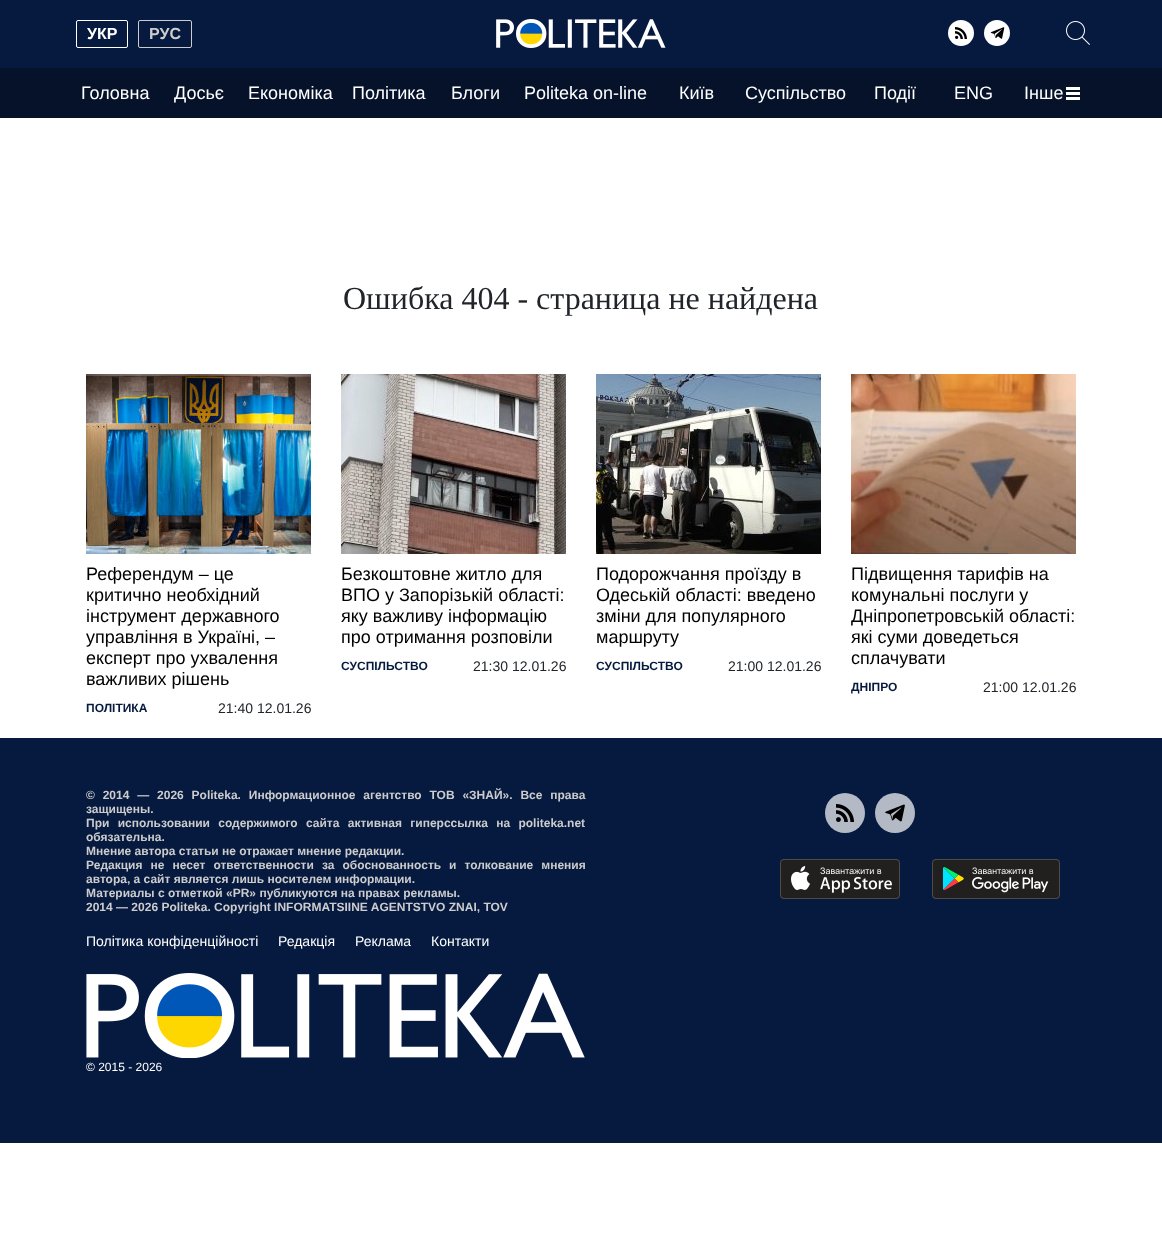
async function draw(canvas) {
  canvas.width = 1162
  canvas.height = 1255
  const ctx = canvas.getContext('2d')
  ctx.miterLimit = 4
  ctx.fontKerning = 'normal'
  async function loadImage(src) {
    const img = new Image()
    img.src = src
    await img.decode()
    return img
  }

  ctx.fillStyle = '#fff'
  ctx.fillRect(0, 0, 1162, 1255)
  ctx.fillStyle = '#061a3f'
  ctx.fillRect(0, 0, 1162, 68)
  ctx.beginPath()
  ctx.roundRect(76.5, 20.5, 51, 27, 1.5)
  ctx.strokeStyle = '#fff'
  ctx.stroke()
  ctx.font = 'bold 16px Liberation Sans'
  ctx.fillStyle = '#fff'
  ctx.fillText('УКР', 87, 39)
  ctx.beginPath()
  ctx.roundRect(138.5, 20.5, 53, 27, 1.5)
  ctx.strokeStyle = '#ccc'
  ctx.stroke()
  ctx.fillStyle = '#ccc'
  ctx.fillText('РУС', 149, 39)
  ctx.drawImage(await loadImage('image0.png'), 496, 19, 170, 29)
  ctx.fillStyle = '#fff'
  ctx.beginPath()
  ctx.arc(961, 33, 13, 0, 2 * Math.PI)
  ctx.fill()
  ctx.drawImage(await loadImage('image1.png'), 955, 27, 12, 12)
  ctx.beginPath()
  ctx.arc(997, 33, 13, 0, 2 * Math.PI)
  ctx.fill()
  ctx.drawImage(await loadImage('image2.png'), 990, 27, 15, 12)
  ctx.drawImage(await loadImage('image3.png'), 1066, 21, 24, 24)
  ctx.fillStyle = '#05122a'
  ctx.fillRect(0, 68, 1162, 50)
  ctx.font = '18px Liberation Sans'
  ctx.fillStyle = '#fff'
  ctx.fillText('Головна', 81, 99)
  ctx.fillText('Досьє', 174, 99)
  ctx.fillText('Економіка', 248, 99)
  ctx.fillText('Політика', 352, 99)
  ctx.fillText('Блоги', 451, 99)
  ctx.fillText('Politeka on-line', 524, 99)
  ctx.fillText('Київ', 679, 99)
  ctx.fillText('Суспільство', 745, 99)
  ctx.fillText('Події', 874, 99)
  ctx.fillText('ENG', 954, 99)
  ctx.fillText('Інше', 1024, 99)
  ctx.fillRect(1066, 92, 14, 3)
  ctx.fillRect(1066, 87, 14, 3)
  ctx.fillRect(1066, 97, 14, 3)
  ctx.font = '32px Liberation Serif'
  ctx.fillStyle = '#212529'
  ctx.fillText('Ошибка 404 - страница не найдена', 343, 309)
  ctx.drawImage(await loadImage('image4.png'), 86, 374, 225, 180)
  ctx.font = '18px Liberation Sans'
  ctx.fillStyle = '#000'
  ctx.fillText('Референдум – це', 86, 580)
  ctx.fillText('критично необхідний', 86, 601)
  ctx.fillText('інструмент державного', 86, 622)
  ctx.fillText('управління в Україні, –', 86, 643)
  ctx.fillText('експерт про ухвалення', 86, 664)
  ctx.fillText('важливих рішень', 86, 685)
  ctx.font = 'bold 12px Liberation Sans'
  ctx.fillStyle = '#061a3f'
  ctx.fillText('ПОЛІТИКА', 86, 712)
  ctx.font = '14px Liberation Sans'
  ctx.fillStyle = '#212529'
  ctx.fillText('21:40 12.01.26', 218, 713)
  ctx.drawImage(await loadImage('image5.png'), 341, 374, 225, 180)
  ctx.font = '18px Liberation Sans'
  ctx.fillStyle = '#000'
  ctx.fillText('Безкоштовне житло для', 341, 580)
  ctx.fillText('ВПО у Запорізькій області:', 341, 601)
  ctx.fillText('яку важливу інформацію', 341, 622)
  ctx.fillText('про отримання розповіли', 341, 643)
  ctx.font = 'bold 12px Liberation Sans'
  ctx.fillStyle = '#061a3f'
  ctx.fillText('СУСПІЛЬСТВО', 341, 670)
  ctx.font = '14px Liberation Sans'
  ctx.fillStyle = '#212529'
  ctx.fillText('21:30 12.01.26', 473, 671)
  ctx.drawImage(await loadImage('image6.png'), 596, 374, 225, 180)
  ctx.font = '18px Liberation Sans'
  ctx.fillStyle = '#000'
  ctx.fillText('Подорожчання проїзду в', 596, 580)
  ctx.fillText('Одеській області: введено', 596, 601)
  ctx.fillText('зміни для популярного', 596, 622)
  ctx.fillText('маршруту', 596, 643)
  ctx.font = 'bold 12px Liberation Sans'
  ctx.fillStyle = '#061a3f'
  ctx.fillText('СУСПІЛЬСТВО', 596, 670)
  ctx.font = '14px Liberation Sans'
  ctx.fillStyle = '#212529'
  ctx.fillText('21:00 12.01.26', 728, 671)
  ctx.drawImage(await loadImage('image7.png'), 851, 374, 225, 180)
  ctx.font = '18px Liberation Sans'
  ctx.fillStyle = '#000'
  ctx.fillText('Підвищення тарифів на', 851, 580)
  ctx.fillText('комунальні послуги у', 851, 601)
  ctx.fillText('Дніпропетровській області:', 851, 622)
  ctx.fillText('які суми доведеться', 851, 643)
  ctx.fillText('сплачувати', 851, 664)
  ctx.font = 'bold 12px Liberation Sans'
  ctx.fillStyle = '#061a3f'
  ctx.fillText('ДНІПРО', 851, 691)
  ctx.font = '14px Liberation Sans'
  ctx.fillStyle = '#212529'
  ctx.fillText('21:00 12.01.26', 983, 692)
  ctx.fillStyle = '#061a3f'
  ctx.fillRect(0, 738, 1162, 405)
  ctx.wordSpacing = '4.5px'
  ctx.font = 'bold 12px Liberation Sans'
  ctx.fillStyle = '#ccc'
  ctx.fillText('© 2014 — 2026 Politeka. Информационное агентство ТОВ «ЗНАЙ». Все права', 86, 799)
  ctx.wordSpacing = '0px'
  ctx.fillText('защищены.', 86, 813)
  ctx.wordSpacing = '5px'
  ctx.fillText('При использовании содержимого сайта активная гиперссылка на politeka.net', 86, 827)
  ctx.wordSpacing = '0px'
  ctx.fillText('обязательна.', 86, 841)
  ctx.fillText('Мнение автора статьи не отражает мнение редакции.', 86, 855)
  ctx.wordSpacing = '4.75px'
  ctx.fillText('Редакция не несет ответственности за обоснованность', 86, 869)
  ctx.fillText('и толкование мнения', 449, 869)
  ctx.wordSpacing = '0px'
  ctx.fillText('автора, а сайт является лишь носителем информации.', 86, 883)
  ctx.fillText('Материалы с отметкой «PR» публикуются на правах рекламы.', 86, 897)
  ctx.fillText('2014 — 2026 Politeka. Copyright INFORMATSIINE AGENTSTVO ZNAI, TOV', 86, 911)
  ctx.font = '14px Liberation Sans'
  ctx.fillStyle = '#fff'
  ctx.fillText('Політика конфіденційності', 86, 946)
  ctx.fillText('Редакція', 278, 946)
  ctx.fillText('Реклама', 355, 946)
  ctx.fillText('Контакти', 431, 946)
  ctx.drawImage(await loadImage('image8.png'), 86, 973, 499, 85)
  ctx.font = '12px Liberation Sans'
  ctx.fillText('© 2015 - 2026', 86, 1071)
  ctx.fillStyle = '#b4bac5'
  ctx.beginPath()
  ctx.arc(845, 813, 20, 0, 2 * Math.PI)
  ctx.fill()
  ctx.drawImage(await loadImage('image9.png'), 836, 804, 18, 18)
  ctx.beginPath()
  ctx.arc(895, 813, 20, 0, 2 * Math.PI)
  ctx.fill()
  ctx.drawImage(await loadImage('image10.png'), 885, 804, 20, 18)
  ctx.drawImage(await loadImage('image11.png'), 780, 859, 120, 40)
  ctx.drawImage(await loadImage('image12.png'), 932, 859, 128, 40)
}

draw(document.querySelector('canvas'))
